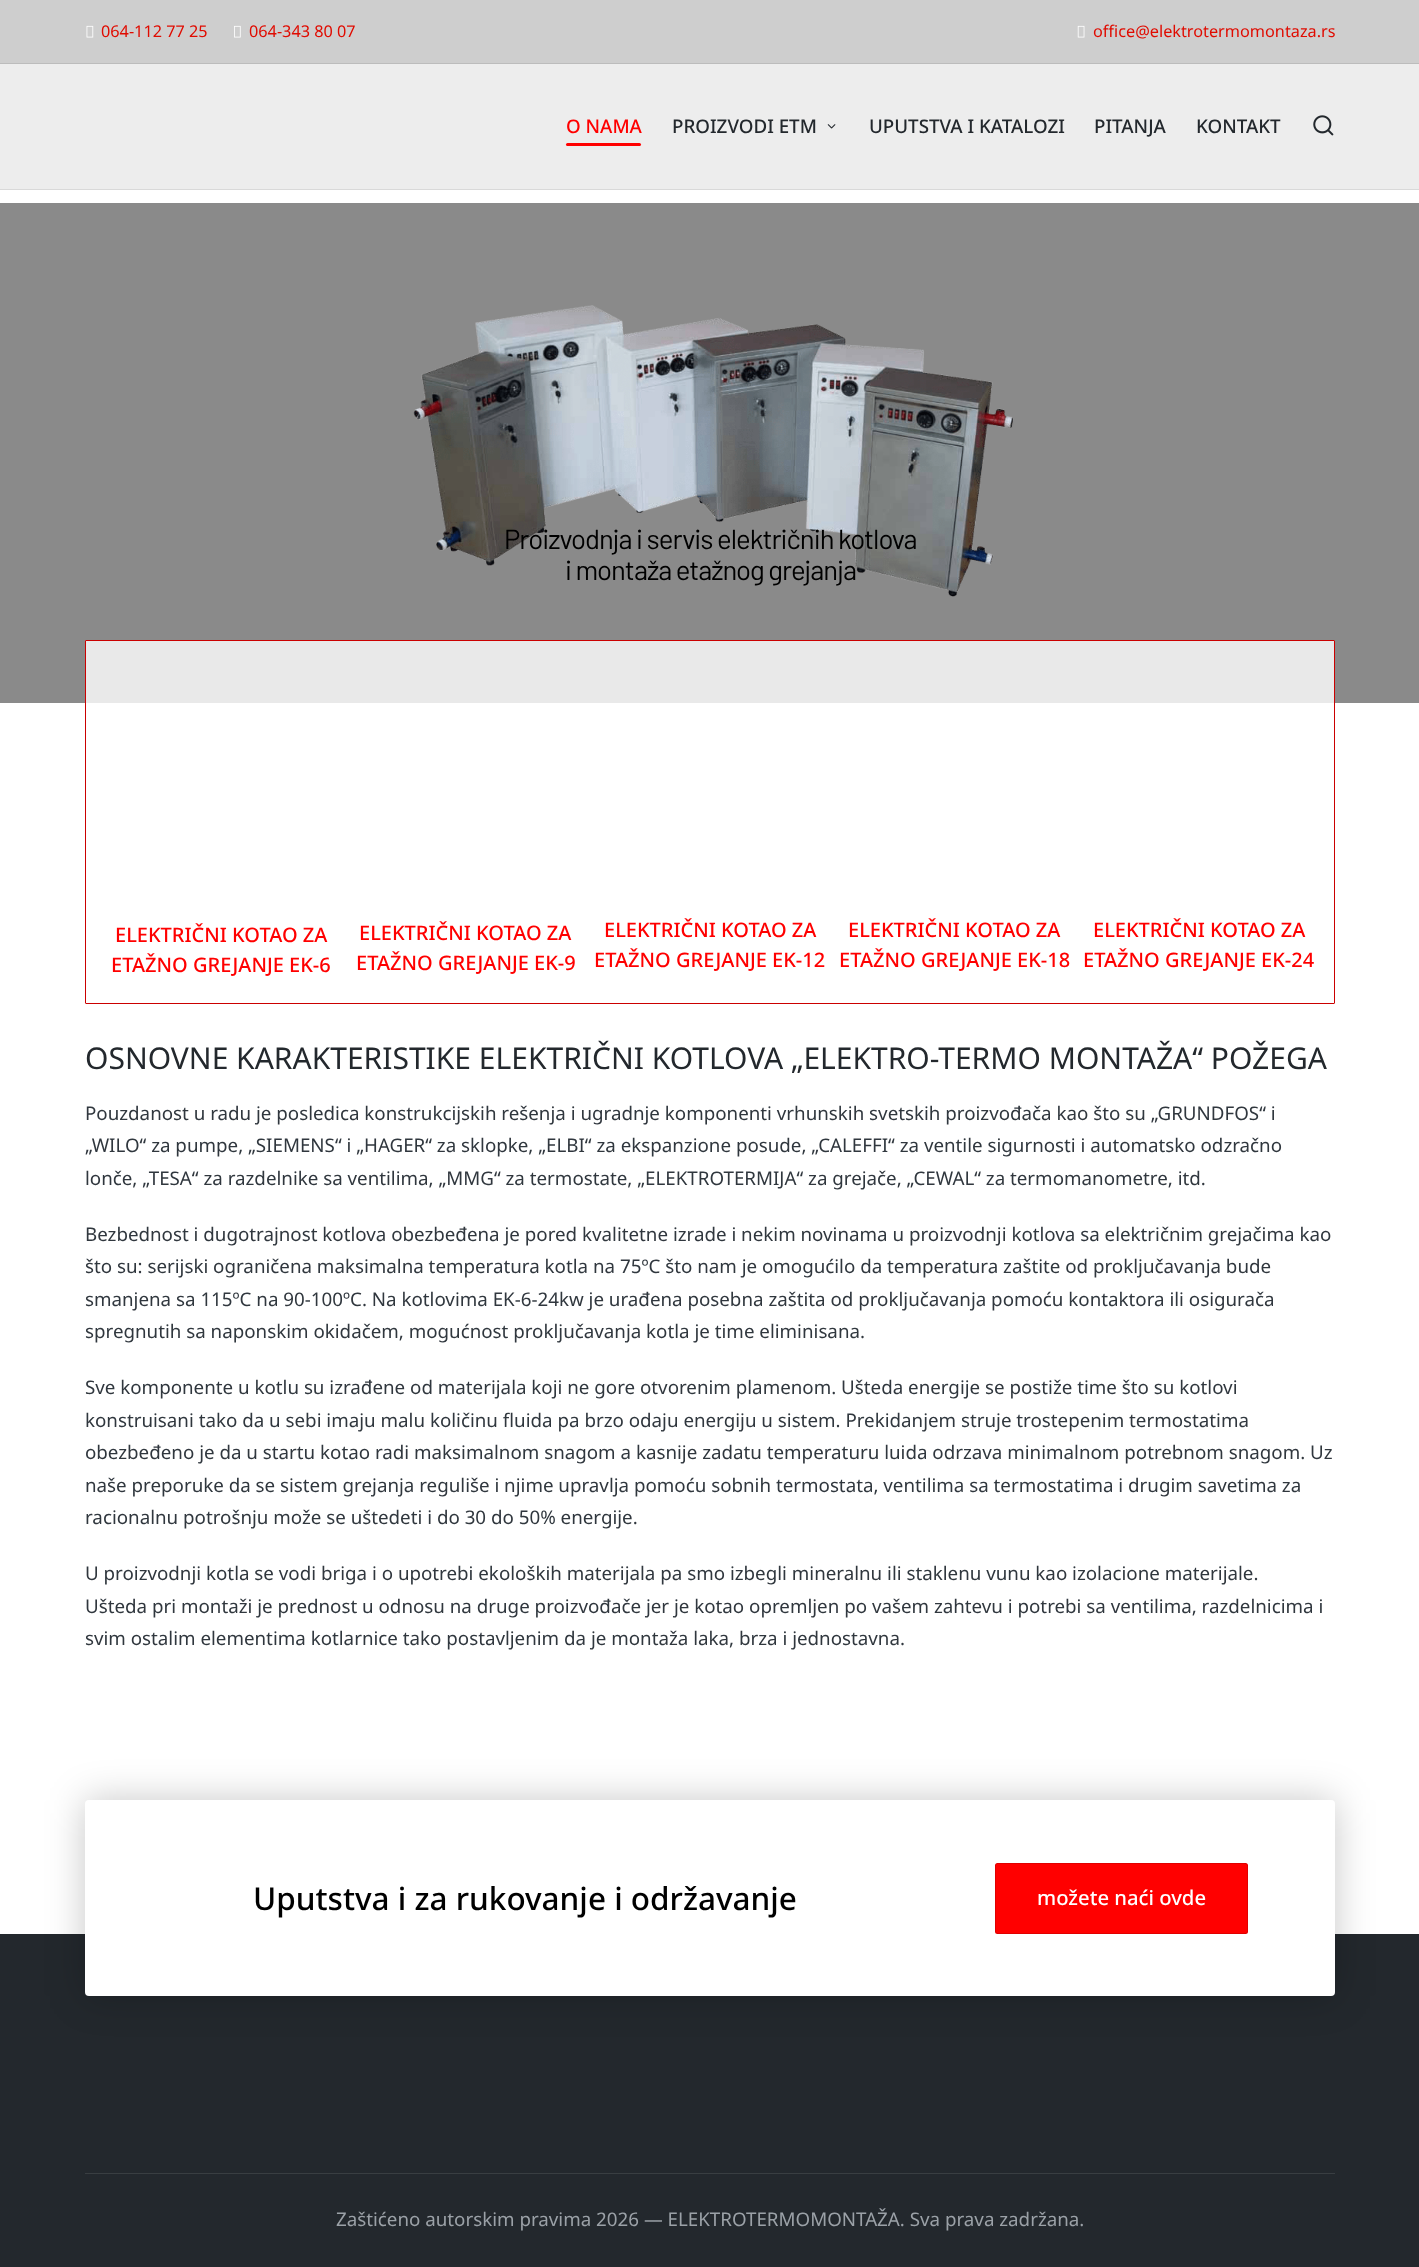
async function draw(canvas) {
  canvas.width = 1419
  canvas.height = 2267
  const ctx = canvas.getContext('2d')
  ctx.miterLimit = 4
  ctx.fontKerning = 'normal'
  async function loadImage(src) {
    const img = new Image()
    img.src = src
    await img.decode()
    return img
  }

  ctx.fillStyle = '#fff'
  ctx.fillRect(0, 0, 1419, 2267)
  ctx.fillStyle = '#cecece'
  ctx.fillRect(0, 0, 1419, 63)
  ctx.fillStyle = '#bcbcbc'
  ctx.fillRect(0, 63, 1419, 1)
  ctx.drawImage(await loadImage('image0.png'), 86, 25, 8, 13)
  ctx.font = '16.25px Noto Sans'
  ctx.fillStyle = '#e00b00'
  ctx.fillText('064-112 77 25', 101, 37)
  ctx.drawImage(await loadImage('image1.png'), 234, 25, 7, 13)
  ctx.fillText('064-343 80 07', 249, 37)
  ctx.drawImage(await loadImage('image2.png'), 1077, 25, 8, 13)
  ctx.fillText('office@elektrotermomontaza.rs', 1093, 37)
  ctx.fillStyle = '#ededed'
  ctx.fillRect(0, 64, 1419, 125)
  ctx.fillStyle = '#d9d9d9'
  ctx.fillRect(0, 189, 1419, 1)
  ctx.font = '500 18.75px Noto Sans'
  ctx.fillStyle = '#f00'
  ctx.fillText('O NAMA', 566, 133)
  ctx.beginPath()
  ctx.roundRect(566, 143, 75, 3, 1.5)
  ctx.fill()
  ctx.fillStyle = '#23282d'
  ctx.fillText('PROIZVODI ETM', 672, 133)
  ctx.drawImage(await loadImage('image3.png'), 827, 124, 9, 5)
  ctx.fillText('UPUTSTVA I KATALOZI', 869, 133)
  ctx.fillText('PITANJA', 1094, 133)
  ctx.fillText('KONTAKT', 1196, 133)
  ctx.drawImage(await loadImage('image4.png'), 1313, 115, 21, 21)
  ctx.fillStyle = '#8a8a8a'
  ctx.fillRect(0, 203, 1419, 500)
  ctx.drawImage(await loadImage('image5.png'), 413, 305, 601, 292)
  ctx.letterSpacing = '-1px'
  ctx.font = '27.5px Barlow'
  ctx.fillStyle = '#000'
  ctx.fillText('Proizvodnja i servis električnih kotlova', 504, 549)
  ctx.fillText('i montaža etažnog grejanja', 565, 580)
  ctx.fillStyle = '#ffffffcf'
  ctx.beginPath()
  ctx.roundRect(85.5, 640.5, 1249, 363, 0.5)
  ctx.fill()
  ctx.strokeStyle = '#cb0000'
  ctx.stroke()
  ctx.letterSpacing = '0px'
  ctx.font = '500 20px Noto Sans'
  ctx.fillStyle = '#f00'
  ctx.fillText('ELEKTRIČNI KOTAO ZA', 115, 942)
  ctx.fillText('ETAŽNO GREJANJE EK-6', 111, 972)
  ctx.fillText('ELEKTRIČNI KOTAO ZA', 359, 940)
  ctx.fillText('ETAŽNO GREJANJE EK-9', 356, 970)
  ctx.fillText('ELEKTRIČNI KOTAO ZA', 604, 937)
  ctx.fillText('ETAŽNO GREJANJE EK-12', 594, 967)
  ctx.fillText('ELEKTRIČNI KOTAO ZA', 848, 937)
  ctx.fillText('ETAŽNO GREJANJE EK-18', 839, 967)
  ctx.fillText('ELEKTRIČNI KOTAO ZA', 1093, 937)
  ctx.fillText('ETAŽNO GREJANJE EK-24', 1083, 967)
  ctx.font = '30px Noto Sans'
  ctx.fillStyle = '#23282d'
  ctx.fillText('OSNOVNE KARAKTERISTIKE ELEKTRIČNI KOTLOVA „ELEKTRO-TERMO MONTAŽA“ POŽEGA', 85, 1069)
  ctx.font = '18.75px Noto Sans'
  ctx.fillStyle = '#30373e'
  ctx.fillText('Pouzdanost u radu je posledica konstrukcijskih rešenja i ugradnje komponenti vrhunskih svetskih proizvođača kao što su „GRUNDFOS“ i', 85, 1120)
  ctx.fillText('„WILO“ za pumpe, „SIEMENS“ i „HAGER“ za sklopke, „ELBI“ za ekspanzione posude, „CALEFFI“ za ventile sigurnosti i automatsko odzračno', 85, 1152)
  ctx.fillText('lonče, „TESA“ za razdelnike sa ventilima, „MMG“ za termostate, „ELEKTROTERMIJA“ za grejače, „CEWAL“ za termomanometre, itd.', 85, 1185)
  ctx.fillText('Bezbednost i dugotrajnost kotlova obezbeđena je pored kvalitetne izrade i nekim novinama u proizvodnji kotlova sa električnim grejačima kao', 85, 1241)
  ctx.fillText('što su: serijski ograničena maksimalna temperatura kotla na 75ºC što nam je omogućilo da temperatura zaštite od proključavanja bude', 85, 1273)
  ctx.fillText('smanjena sa 115ºC na 90-100ºC. Na kotlovima EK-6-24kw je urađena posebna zaštita od proključavanja pomoću kontaktora ili osigurača', 85, 1306)
  ctx.fillText('spregnutih sa naponskim okidačem, mogućnost proključavanja kotla je time eliminisana.', 85, 1338)
  ctx.fillText('Sve komponente u kotlu su izrađene od materijala koji ne gore otvorenim plamenom. Ušteda energije se postiže time što su kotlovi', 85, 1394)
  ctx.fillText('konstruisani tako da u sebi imaju malu količinu fluida pa brzo odaju energiju u sistem. Prekidanjem struje trostepenim termostatima', 85, 1427)
  ctx.fillText('obezbeđeno je da u startu kotao radi maksimalnom snagom a kasnije zadatu temperaturu luida odrzava minimalnom potrebnom snagom. Uz', 85, 1459)
  ctx.fillText('naše preporuke da se sistem grejanja reguliše i njime upravlja pomoću sobnih termostata, ventilima sa termostatima i drugim savetima za', 85, 1492)
  ctx.fillText('racionalnu potrošnju može se uštedeti i do 30 do 50% energije.', 85, 1524)
  ctx.fillText('U proizvodnji kotla se vodi briga i o upotrebi ekoloških materijala pa smo izbegli mineralnu ili staklenu vunu kao izolacione materijale.', 85, 1580)
  ctx.fillText('Ušteda pri montaži je prednost u odnosu na druge proizvođače jer je kotao opremljen po vašem zahtevu i potrebi sa ventilima, razdelnicima i', 85, 1613)
  ctx.fillText('svim ostalim elementima kotlarnice tako postavljenim da je montaža laka, brza i jednostavna.', 85, 1645)
  ctx.fillStyle = '#23282d'
  ctx.fillRect(0, 1934, 1419, 333)
  ctx.fillStyle = '#00000038'
  ctx.filter = 'blur(19px)'
  ctx.beginPath()
  ctx.roundRect(85, 1800, 1250, 196, 4)
  ctx.fill()
  ctx.filter = 'none'
  ctx.fillStyle = '#fff'
  ctx.beginPath()
  ctx.roundRect(85, 1800, 1250, 196, 4)
  ctx.fill()
  ctx.font = '500 31.5px Noto Sans'
  ctx.fillStyle = '#000'
  ctx.fillText('Uputstva i za rukovanje i održavanje', 253, 1910)
  ctx.fillStyle = '#f00'
  ctx.beginPath()
  ctx.roundRect(995, 1863, 253, 71, 2.5)
  ctx.fill()
  ctx.beginPath()
  ctx.roundRect(995.5, 1863.5, 252, 70, 2)
  ctx.strokeStyle = '#0000001f'
  ctx.stroke()
  ctx.font = '500 20.25px Noto Sans'
  ctx.fillStyle = '#fff'
  ctx.fillText('možete naći ovde', 1037, 1905)
  ctx.fillStyle = '#393e42'
  ctx.fillRect(85, 2173, 1250, 1)
  ctx.font = '18.75px Noto Sans'
  ctx.fillStyle = '#9ba1a7'
  ctx.fillText('Zaštićeno autorskim pravima 2026 — ELEKTROTERMOMONTAŽA. Sva prava zadržana.', 336, 2226)
}

draw(document.querySelector('canvas'))
